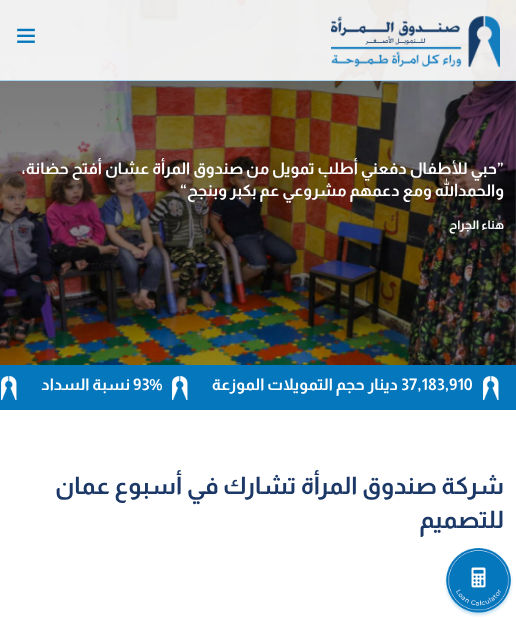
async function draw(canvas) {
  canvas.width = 516
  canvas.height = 620
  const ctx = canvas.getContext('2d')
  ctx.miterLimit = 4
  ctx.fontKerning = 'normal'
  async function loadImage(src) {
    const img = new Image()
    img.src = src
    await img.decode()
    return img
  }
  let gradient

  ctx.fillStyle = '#fff'
  ctx.fillRect(0, 0, 516, 620)
  ctx.drawImage(await loadImage('image2.png'), 0, 0, 516, 365)
  gradient = ctx.createLinearGradient(258, 0, 258, 365)
  gradient.addColorStop(0, '#0000004d')
  gradient.addColorStop(1, '#00000000')
  ctx.fillStyle = gradient
  ctx.fillRect(0, 0, 516, 339)
  ctx.fillStyle = '#ffffffe6'
  ctx.fillRect(0, 0, 516, 81)
  ctx.fillStyle = '#66bbef80'
  ctx.fillRect(0, 80, 516, 1)
  ctx.drawImage(await loadImage('image0.png'), 331, 15, 169, 52)
  ctx.drawImage(await loadImage('image1.png'), 17, 28, 18, 15)
  ctx.font = 'bold 16px Almarai'
  ctx.fillStyle = '#fff'
  ctx.fillText('”', 497, 174)
  ctx.direction = 'rtl'
  ctx.fillText('حبي للأطفال دفعني أطلب تمويل من صندوق المرأة عشان أفتح حضانة،', 497, 174)
  ctx.fillText('والحمدالله ومع دعمهم مشروعي عم بكبر وبنجح', 504, 196)
  ctx.direction = 'ltr'
  ctx.fillText('“', 180, 196)
  ctx.direction = 'rtl'
  ctx.font = 'bold 12px Almarai'
  ctx.fillText('هناء الجراح', 504, 229)
  ctx.fillStyle = '#0477bd'
  ctx.fillRect(0, 365, 516, 45)
  ctx.drawImage(await loadImage('image3.png'), 483, 376, 16, 24)
  ctx.direction = 'ltr'
  ctx.font = 'bold 16px Almarai'
  ctx.fillStyle = '#fff'
  ctx.fillText('37,183,910', 401, 390)
  ctx.direction = 'rtl'
  ctx.fillText('دينار حجم التمويلات الموزعة', 398, 390)
  ctx.drawImage(await loadImage('image3.png'), 172, 376, 16, 24)
  ctx.direction = 'ltr'
  ctx.fillText('93%', 133, 390)
  ctx.direction = 'rtl'
  ctx.fillText('نسبة السداد', 130, 390)
  ctx.drawImage(await loadImage('image3.png'), 1, 376, 16, 24)
  ctx.font = 'bold 24px Almarai'
  ctx.fillStyle = '#1c3867'
  ctx.fillText('شركة صندوق المرأة تشارك في أسبوع عمان', 504, 494)
  ctx.fillText('للتصميم', 504, 528)
  ctx.drawImage(await loadImage('image4.png'), 444, 548, 69, 69)
}

draw(document.querySelector('canvas'))
